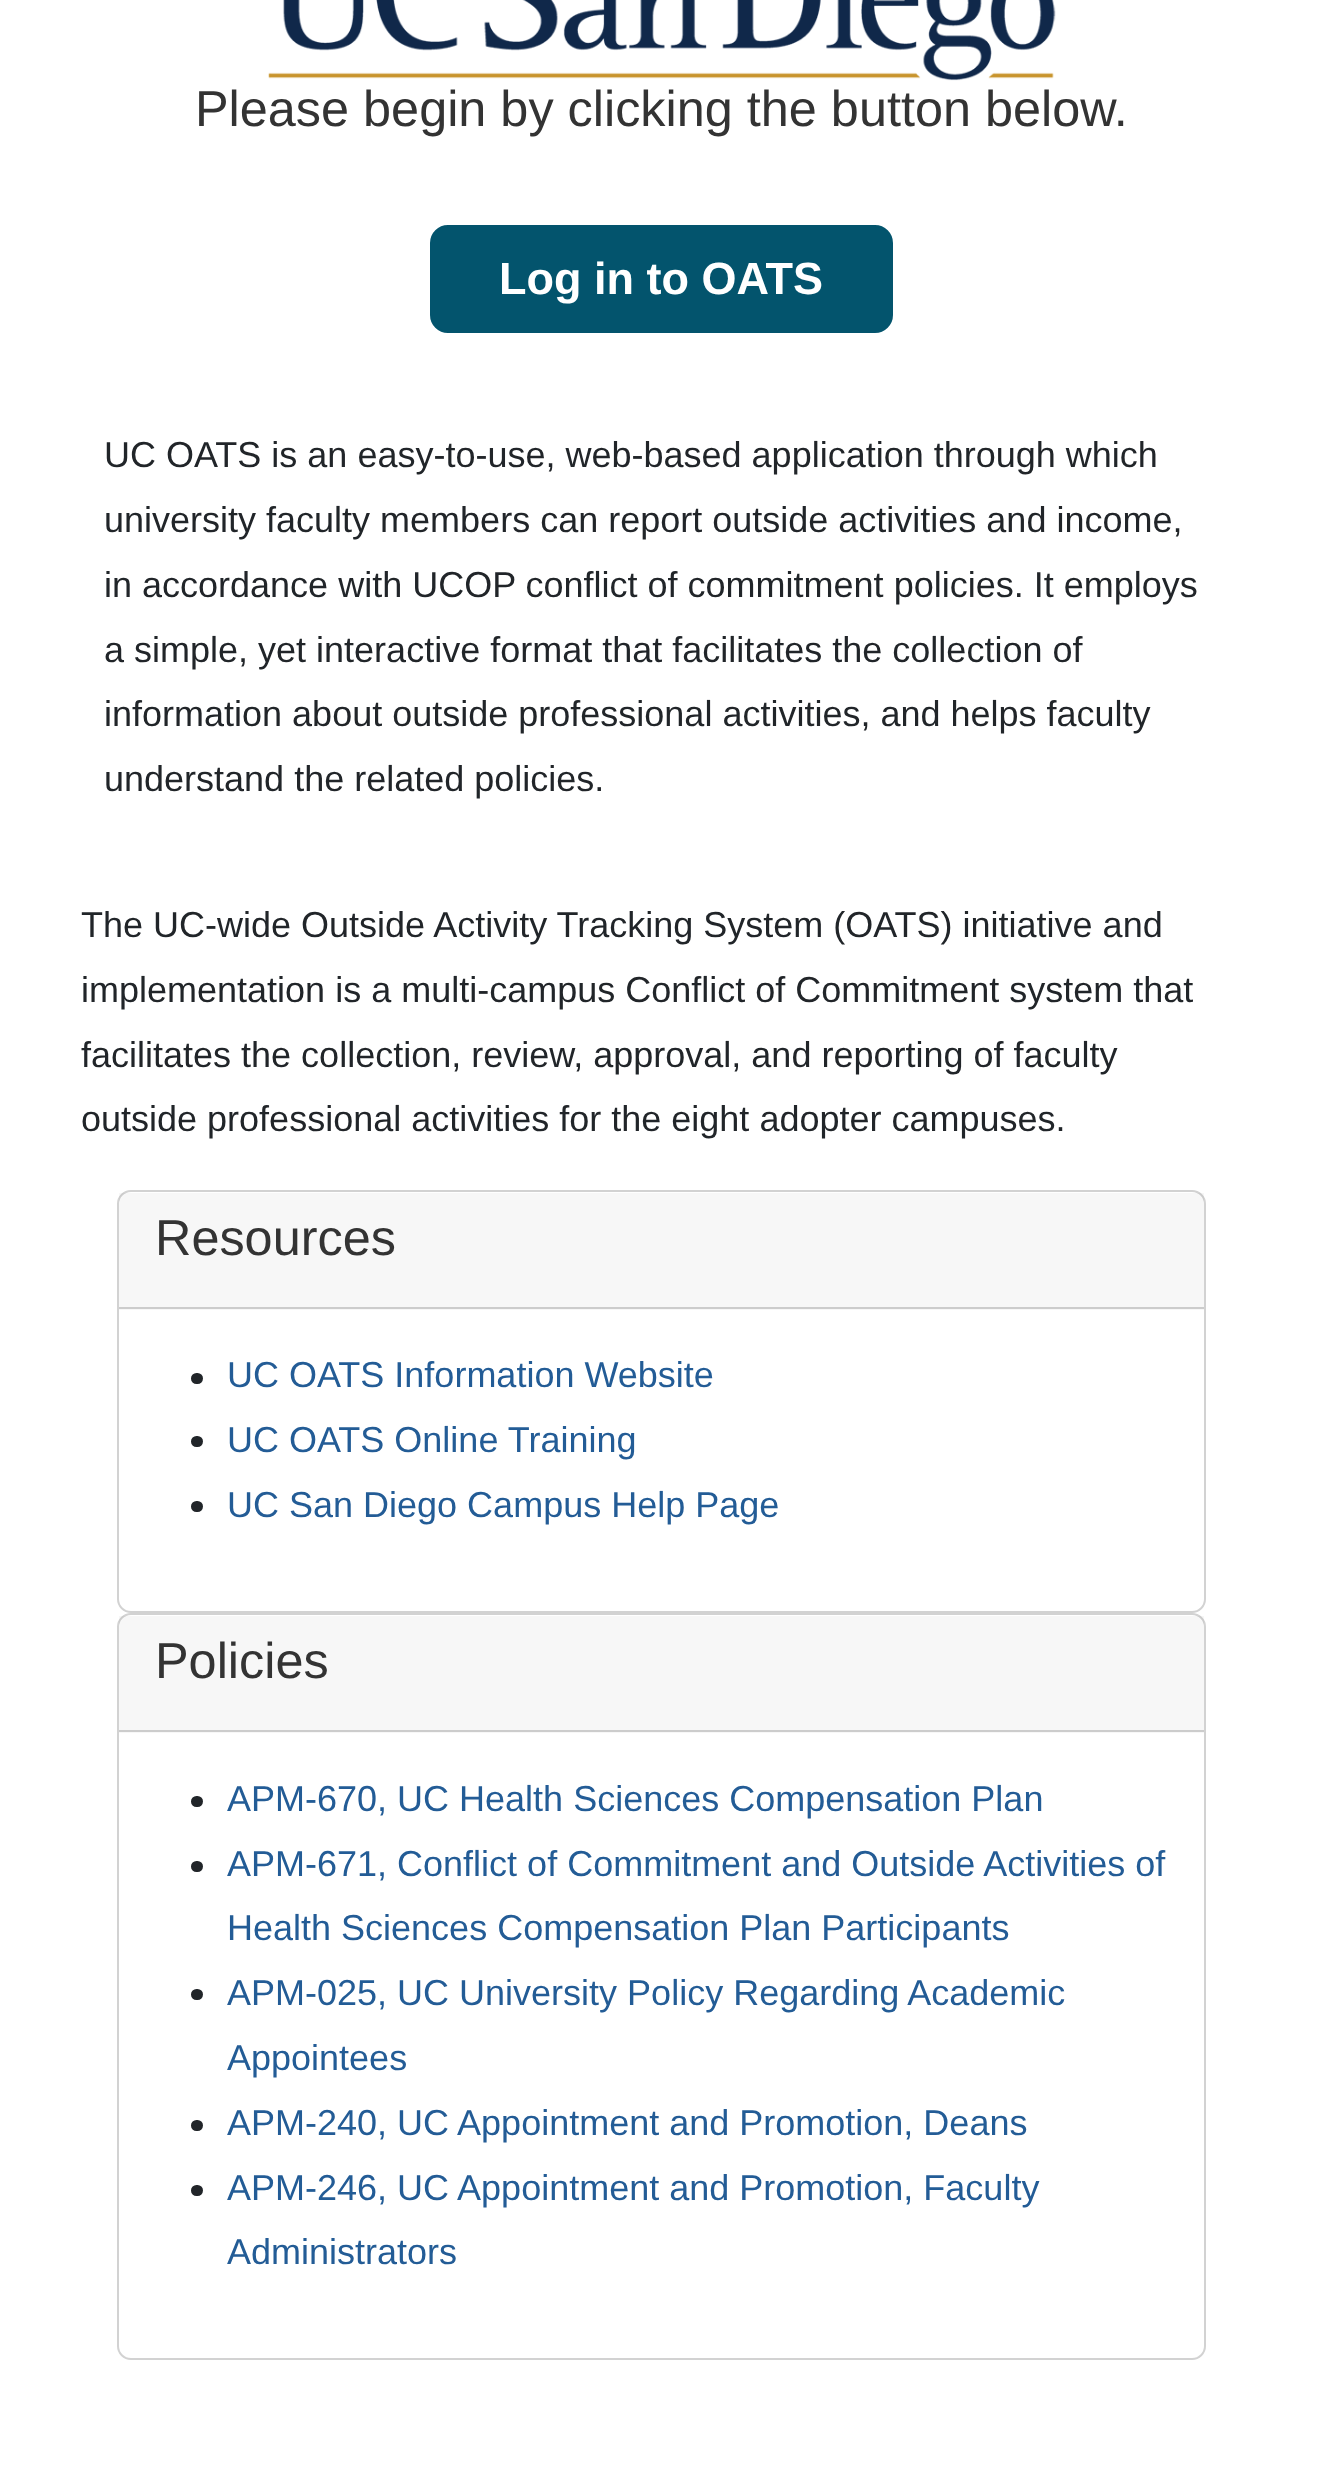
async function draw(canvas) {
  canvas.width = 1322
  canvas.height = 2490
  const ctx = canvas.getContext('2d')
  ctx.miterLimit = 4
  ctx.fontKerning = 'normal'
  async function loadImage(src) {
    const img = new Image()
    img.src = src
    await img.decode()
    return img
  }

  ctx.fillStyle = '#fff'
  ctx.fillRect(0, 0, 1322, 2490)
  ctx.drawImage(await loadImage('image0.png'), 268, 0, 788, 81)
  ctx.font = '50.4px Liberation Sans'
  ctx.fillStyle = '#333'
  ctx.fillText('Please begin by clicking the button below.', 195, 126)
  ctx.fillStyle = '#03546d'
  ctx.beginPath()
  ctx.roundRect(431, 226, 461, 106, 17)
  ctx.fill()
  ctx.strokeStyle = '#03546d'
  ctx.lineWidth = 2
  ctx.stroke()
  ctx.font = 'bold 45px Liberation Sans'
  ctx.fillStyle = '#fff'
  ctx.fillText('Log in to OATS', 499, 294)
  ctx.font = '36px Liberation Sans'
  ctx.fillStyle = '#212529'
  ctx.fillText('UC OATS is an easy-to-use, web-based application through which', 104, 467)
  ctx.fillText('university faculty members can report outside activities and income,', 104, 532)
  ctx.fillText('in accordance with UCOP conflict of commitment policies. It employs', 104, 597)
  ctx.fillText('a simple, yet interactive format that facilitates the collection of', 104, 662)
  ctx.fillText('information about outside professional activities, and helps faculty', 104, 726)
  ctx.fillText('understand the related policies.', 104, 791)
  ctx.fillText('The UC-wide Outside Activity Tracking System (OATS) initiative and', 81, 937)
  ctx.fillText('implementation is a multi-campus Conflict of Commitment system that', 81, 1002)
  ctx.fillText('facilitates the collection, review, approval, and reporting of faculty', 81, 1067)
  ctx.fillText('outside professional activities for the eight adopter campuses.', 81, 1131)
  ctx.beginPath()
  ctx.roundRect(118, 1191, 1087, 421, 13)
  ctx.strokeStyle = '#d2d2d2'
  ctx.stroke()
  ctx.fillStyle = '#00000008'
  ctx.fillRect(119, 1193, 1085, 117)
  ctx.fillStyle = '#ccc'
  ctx.fillRect(119, 1307, 1085, 2)
  ctx.font = '50.4px Liberation Sans'
  ctx.fillStyle = '#333'
  ctx.fillText('Resources', 155, 1255)
  ctx.fillStyle = '#212529'
  ctx.beginPath()
  ctx.roundRect(191, 1373, 12, 11, 5.5)
  ctx.fill()
  ctx.font = '36px Liberation Sans'
  ctx.fillStyle = '#235c96'
  ctx.fillText('UC OATS Information Website', 227, 1387)
  ctx.fillStyle = '#212529'
  ctx.beginPath()
  ctx.roundRect(191, 1436, 12, 11, 5.5)
  ctx.fill()
  ctx.fillStyle = '#235c96'
  ctx.fillText('UC OATS Online Training', 227, 1452)
  ctx.fillStyle = '#212529'
  ctx.beginPath()
  ctx.roundRect(191, 1501, 12, 11, 5.5)
  ctx.fill()
  ctx.fillStyle = '#235c96'
  ctx.fillText('UC San Diego Campus Help Page', 227, 1517)
  ctx.beginPath()
  ctx.roundRect(118, 1614, 1087, 745, 13)
  ctx.stroke()
  ctx.fillStyle = '#00000008'
  ctx.fillRect(119, 1616, 1085, 117)
  ctx.fillStyle = '#ccc'
  ctx.fillRect(119, 1730, 1085, 2)
  ctx.font = '50.4px Liberation Sans'
  ctx.fillStyle = '#333'
  ctx.fillText('Policies', 155, 1678)
  ctx.fillStyle = '#212529'
  ctx.beginPath()
  ctx.roundRect(191, 1796, 12, 11, 5.5)
  ctx.fill()
  ctx.font = '36px Liberation Sans'
  ctx.fillStyle = '#235c96'
  ctx.fillText('APM-670, UC Health Sciences Compensation Plan', 227, 1811)
  ctx.fillStyle = '#212529'
  ctx.beginPath()
  ctx.roundRect(191, 1861, 12, 11, 5.5)
  ctx.fill()
  ctx.fillStyle = '#235c96'
  ctx.fillText('APM-671, Conflict of Commitment and Outside Activities of', 227, 1876)
  ctx.fillText('Health Sciences Compensation Plan Participants', 227, 1940)
  ctx.fillStyle = '#212529'
  ctx.beginPath()
  ctx.roundRect(191, 1989, 12, 11, 5.5)
  ctx.fill()
  ctx.fillStyle = '#235c96'
  ctx.fillText('APM-025, UC University Policy Regarding Academic', 227, 2005)
  ctx.fillText('Appointees', 227, 2070)
  ctx.fillStyle = '#212529'
  ctx.beginPath()
  ctx.roundRect(191, 2120, 12, 11, 5.5)
  ctx.fill()
  ctx.fillStyle = '#235c96'
  ctx.fillText('APM-240, UC Appointment and Promotion, Deans', 227, 2135)
  ctx.fillStyle = '#212529'
  ctx.beginPath()
  ctx.roundRect(191, 2185, 12, 11, 5.5)
  ctx.fill()
  ctx.fillStyle = '#235c96'
  ctx.fillText('APM-246, UC Appointment and Promotion, Faculty', 227, 2200)
  ctx.fillText('Administrators', 227, 2264)
}

draw(document.querySelector('canvas'))
